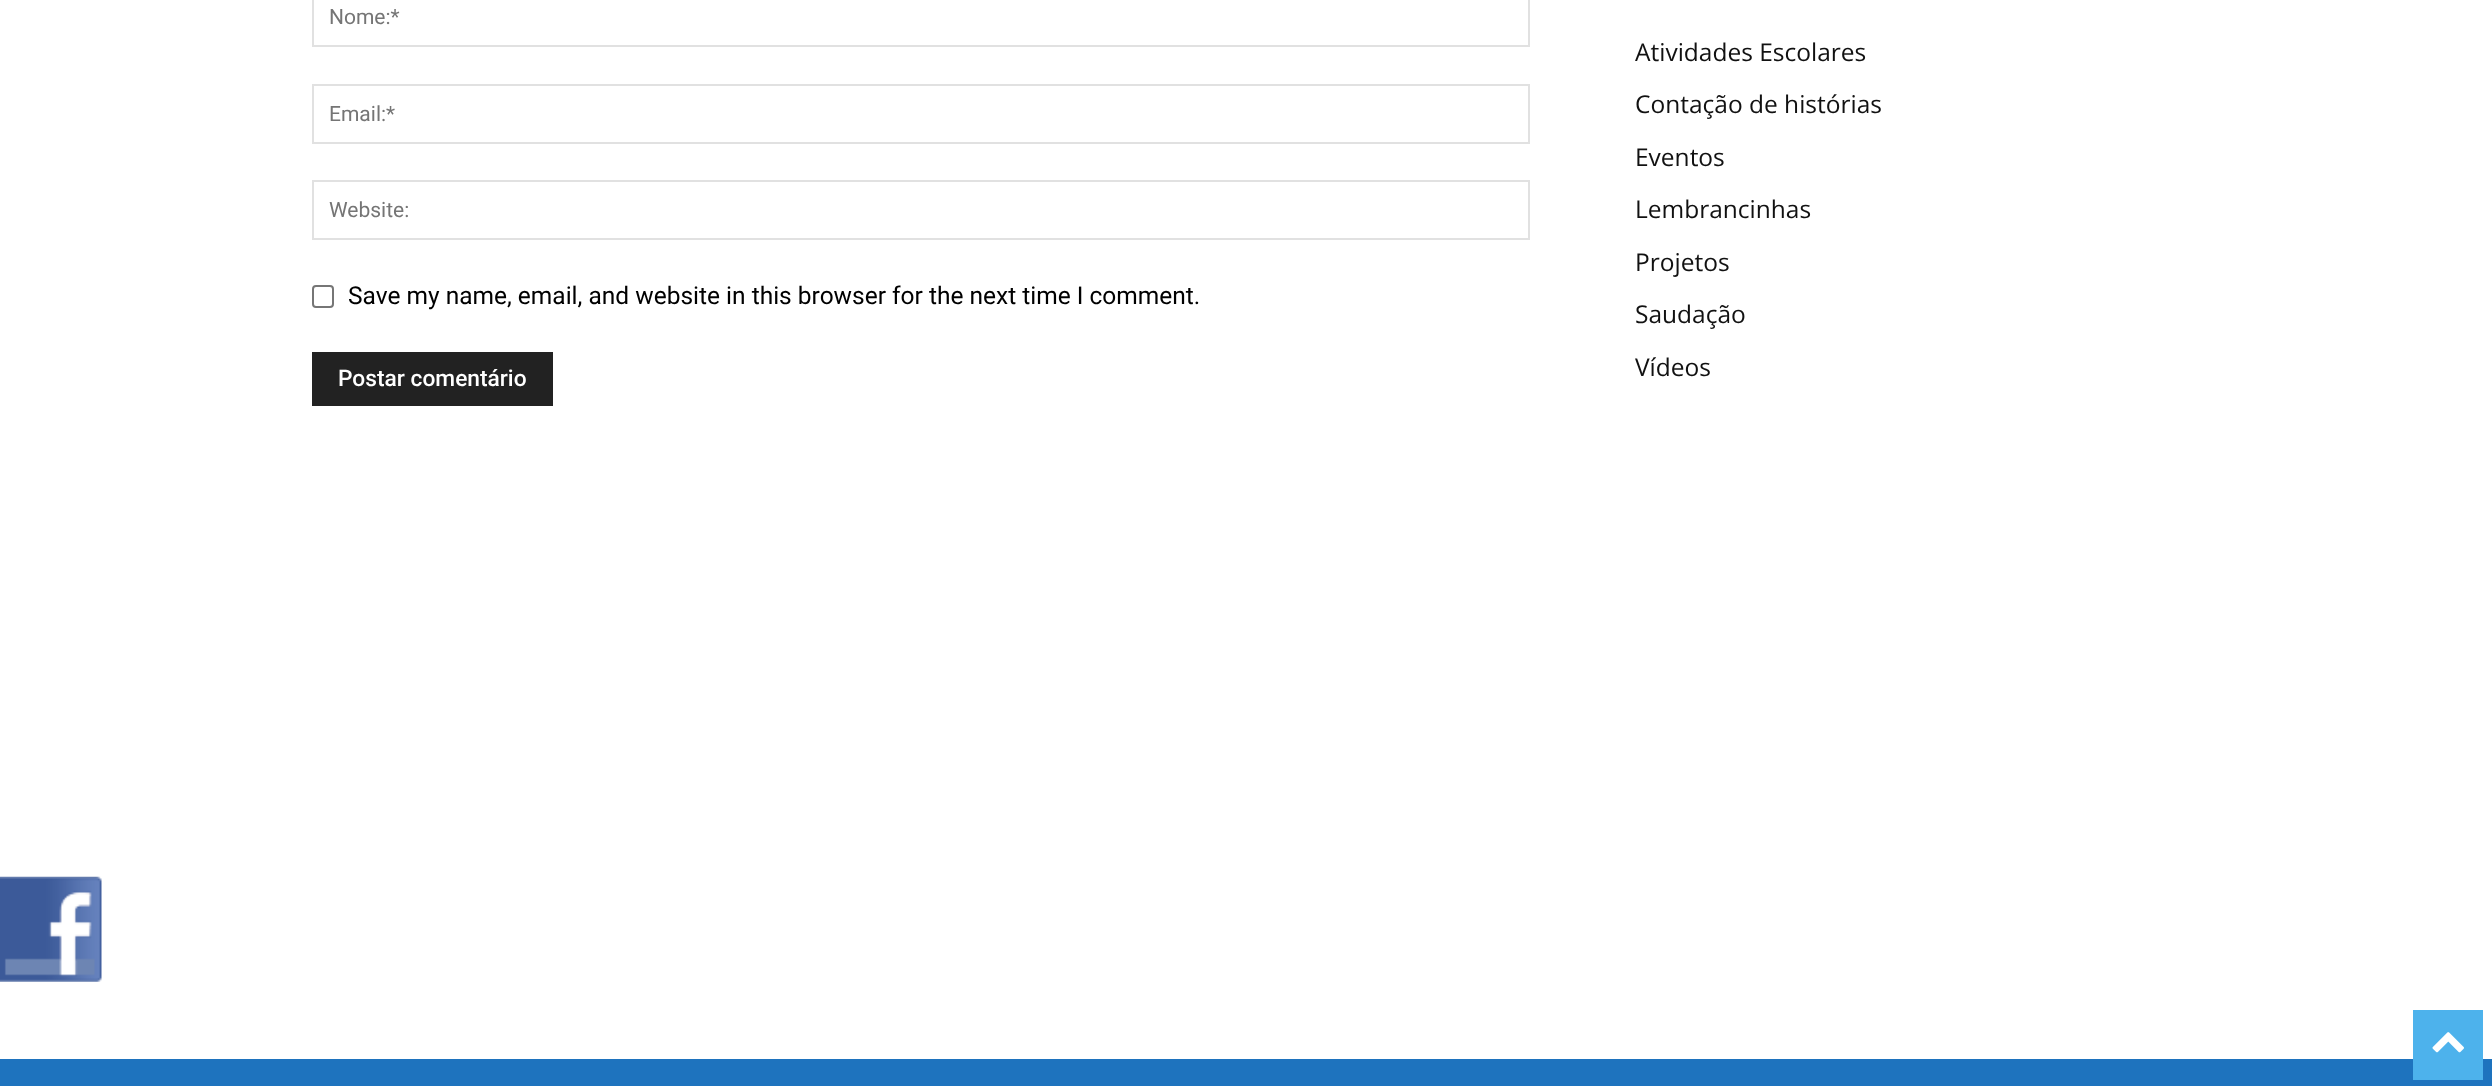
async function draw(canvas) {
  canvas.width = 2492
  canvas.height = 1086
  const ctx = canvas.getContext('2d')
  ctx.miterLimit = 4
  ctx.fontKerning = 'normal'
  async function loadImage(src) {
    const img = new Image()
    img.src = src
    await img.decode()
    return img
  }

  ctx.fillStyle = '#fff'
  ctx.fillRect(0, 0, 2492, 1086)
  ctx.strokeStyle = '#e1e1e1'
  ctx.lineWidth = 2
  ctx.strokeRect(313, -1, 1216, 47)
  ctx.font = '21px Roboto'
  ctx.fillStyle = '#757575'
  ctx.fillText('Nome:*', 329, 24)
  ctx.strokeRect(313, 85, 1216, 58)
  ctx.fillText('Email:*', 329, 121)
  ctx.strokeRect(313, 181, 1216, 58)
  ctx.fillText('Website:', 329, 217)
  ctx.beginPath()
  ctx.roundRect(313, 286, 20, 21, 3)
  ctx.strokeStyle = '#767676'
  ctx.stroke()
  ctx.font = '24.5px Roboto'
  ctx.fillStyle = '#000'
  ctx.fillText('Save my name, email, and website in this browser for the next time I comment.', 348, 304)
  ctx.fillStyle = '#222'
  ctx.fillRect(312, 352, 241, 54)
  ctx.font = '500 22.75px Roboto'
  ctx.fillStyle = '#fff'
  ctx.fillText('Postar comentário', 338, 386)
  ctx.font = '24.5px Open Sans'
  ctx.fillStyle = '#111'
  ctx.fillText('Atividades Escolares', 1635, 61)
  ctx.fillText('Contação de histórias', 1635, 113)
  ctx.fillText('Eventos', 1635, 166)
  ctx.fillText('Lembrancinhas', 1635, 218)
  ctx.fillText('Projetos', 1635, 271)
  ctx.fillText('Saudação', 1635, 323)
  ctx.fillText('Vídeos', 1635, 376)
  ctx.fillStyle = '#1e73be'
  ctx.fillRect(0, 1059, 2492, 27)
  ctx.drawImage(await loadImage('image0.png'), 0, 876, 102, 106)
  ctx.fillStyle = '#4db2ec'
  ctx.fillRect(2413, 1010, 70, 70)
  ctx.drawImage(await loadImage('image1.png'), 2432, 1032, 32, 21)
}

draw(document.querySelector('canvas'))
